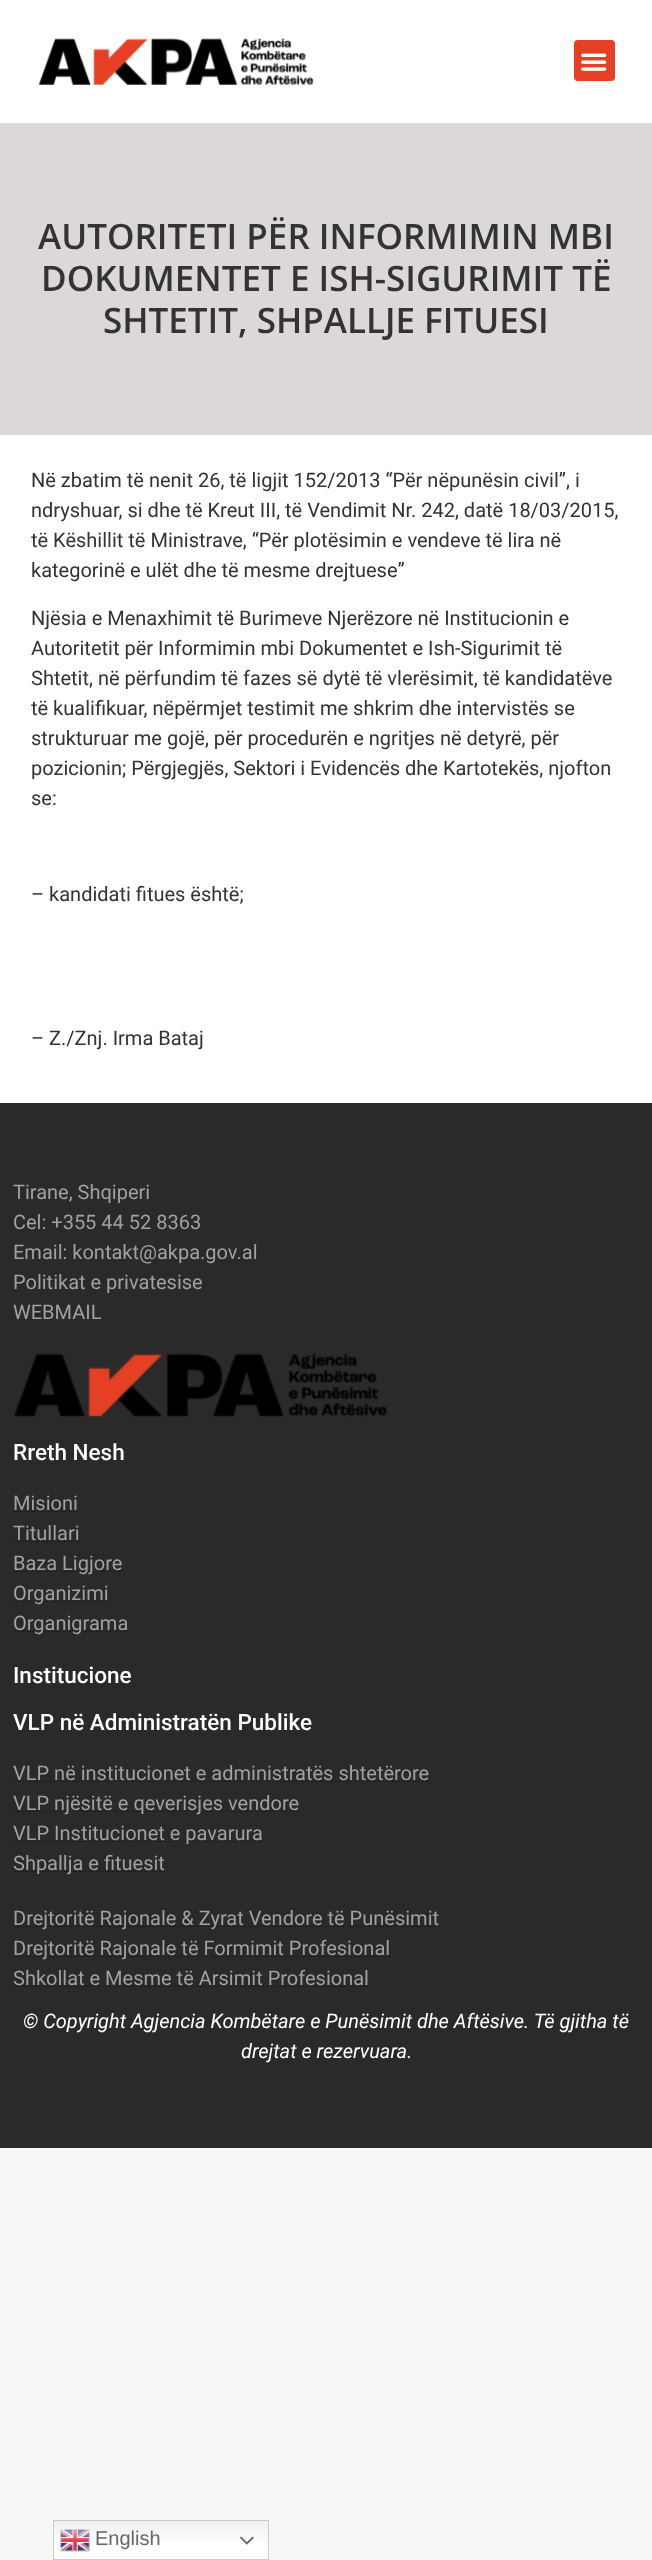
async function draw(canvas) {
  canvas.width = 652
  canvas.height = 2560
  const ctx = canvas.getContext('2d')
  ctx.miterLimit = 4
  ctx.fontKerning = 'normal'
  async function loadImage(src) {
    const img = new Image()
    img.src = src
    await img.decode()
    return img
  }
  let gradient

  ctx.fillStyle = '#f7f7f7'
  ctx.fillRect(0, 0, 652, 2560)
  ctx.fillStyle = '#fff'
  ctx.fillRect(0, 0, 652, 123)
  ctx.drawImage(await loadImage('image0.png'), 38, 38, 276, 47)
  ctx.fillStyle = '#e54025'
  ctx.beginPath()
  ctx.roundRect(574, 40, 41, 41, 4)
  ctx.fill()
  ctx.drawImage(await loadImage('image1.png'), 581, 53, 26, 18)
  ctx.fillStyle = '#dcd8d8'
  ctx.fillRect(0, 123, 652, 312)
  ctx.font = '600 35px Open Sans'
  ctx.fillStyle = '#333'
  ctx.fillText('AUTORITETI PËR INFORMIMIN MBI', 38, 249)
  ctx.fillText('DOKUMENTET E ISH-SIGURIMIT TË', 41, 291)
  ctx.fillText('SHTETIT, SHPALLJE FITUESI', 103, 333)
  ctx.fillStyle = '#fff'
  ctx.fillRect(0, 435, 652, 668)
  ctx.font = '20px Roboto'
  ctx.fillStyle = '#333'
  ctx.fillText('Në zbatim të nenit 26, të ligjit 152/2013 “Për nëpunësin civil”, i', 31, 487)
  ctx.fillText('ndryshuar, si dhe të Kreut III, të Vendimit Nr. 242, datë 18/03/2015,', 31, 517)
  ctx.fillText('të Këshillit të Ministrave, “Për plotësimin e vendeve të lira në', 31, 547)
  ctx.fillText('kategorinë e ulët dhe të mesme drejtuese”', 31, 577)
  ctx.fillText('Njësia e Menaxhimit të Burimeve Njerëzore në Institucionin e', 31, 625)
  ctx.fillText('Autoritetit për Informimin mbi Dokumentet e Ish-Sigurimit të', 31, 655)
  ctx.fillText('Shtetit, në përfundim të fazes së dytë të vlerësimit, të kandidatëve', 31, 685)
  ctx.fillText('të kualifikuar, nëpërmjet testimit me shkrim dhe intervistës se', 31, 715)
  ctx.fillText('strukturuar me gojë, për procedurën e ngritjes në detyrë, për', 31, 745)
  ctx.fillText('pozicionin; Përgjegjës, Sektori i Evidencës dhe Kartotekës, njofton', 31, 775)
  ctx.fillText('se:', 31, 805)
  ctx.fillText('– kandidati fitues është;', 31, 901)
  ctx.fillText('– Z./Znj. Irma Bataj', 31, 1045)
  ctx.fillStyle = '#2a2a2a'
  ctx.fillRect(0, 1103, 652, 1045)
  ctx.fillStyle = '#a1a1a1'
  ctx.fillText('Tirane, Shqiperi', 13, 1199)
  ctx.fillText('Cel: +355 44 52 8363', 13, 1229)
  ctx.fillText('Email: kontakt@akpa.gov.al', 13, 1259)
  ctx.fillText('Politikat e privatesise', 13, 1289)
  ctx.fillText('WEBMAIL', 13, 1319)
  ctx.drawImage(await loadImage('image2.png'), 14, 1353, 373, 64)
  ctx.font = '500 22.5px Roboto'
  ctx.fillStyle = '#fff'
  ctx.fillText('Rreth Nesh', 13, 1460)
  ctx.font = '20px Roboto'
  ctx.fillStyle = '#a1a1a1'
  ctx.fillText('Misioni', 13, 1510)
  ctx.fillStyle = '#222'
  ctx.fillRect(13, 1511, 65, 1)
  ctx.fillStyle = '#a1a1a1'
  ctx.fillText('Titullari', 13, 1540)
  ctx.fillStyle = '#222'
  ctx.fillRect(13, 1541, 66, 1)
  ctx.fillRect(13, 1571, 108, 1)
  ctx.fillStyle = '#a1a1a1'
  ctx.fillText('Baza Ligjore', 13, 1570)
  ctx.fillStyle = '#222'
  ctx.fillRect(13, 1601, 95, 1)
  ctx.fillStyle = '#a1a1a1'
  ctx.fillText('Organizimi', 13, 1600)
  ctx.fillStyle = '#222'
  ctx.fillRect(13, 1631, 115, 1)
  ctx.fillStyle = '#a1a1a1'
  ctx.fillText('Organigrama', 13, 1630)
  ctx.font = '500 22.5px Roboto'
  ctx.fillStyle = '#fff'
  ctx.fillText('Institucione', 13, 1683)
  ctx.fillText('VLP në Administratën Publike', 13, 1730)
  ctx.font = '20px Roboto'
  ctx.fillStyle = '#a1a1a1'
  ctx.fillText('VLP në institucionet e administratës shtetërore', 13, 1780)
  ctx.fillStyle = '#222'
  ctx.fillRect(13, 1781, 416, 1)
  ctx.fillRect(13, 1811, 286, 1)
  ctx.fillStyle = '#a1a1a1'
  ctx.fillText('VLP njësitë e qeverisjes vendore', 13, 1810)
  ctx.fillStyle = '#222'
  ctx.fillRect(13, 1841, 250, 1)
  ctx.fillStyle = '#a1a1a1'
  ctx.fillText('VLP Institucionet e pavarura', 13, 1840)
  ctx.fillStyle = '#222'
  ctx.fillRect(13, 1871, 152, 1)
  ctx.fillStyle = '#a1a1a1'
  ctx.fillText('Shpallja e fituesit', 13, 1870)
  ctx.fillStyle = '#222'
  ctx.fillRect(13, 1926, 426, 1)
  ctx.fillStyle = '#a1a1a1'
  ctx.fillText('Drejtoritë Rajonale & Zyrat Vendore të Punësimit', 13, 1925)
  ctx.fillStyle = '#222'
  ctx.fillRect(13, 1956, 377, 1)
  ctx.fillStyle = '#a1a1a1'
  ctx.fillText('Drejtoritë Rajonale të Formimit Profesional', 13, 1955)
  ctx.fillText('Shkollat e Mesme të Arsimit Profesional', 13, 1985)
  ctx.fillStyle = '#222'
  ctx.fillRect(13, 1986, 356, 1)
  ctx.font = 'italic 20px Roboto'
  ctx.fillStyle = '#fff'
  ctx.fillText('© Copyright Agjencia Kombëtare e Punësimit dhe Aftësive. Të gjitha të', 23, 2028)
  ctx.fillText('drejtat e rezervuara.', 241, 2058)
  gradient = ctx.createLinearGradient(161, 2520, 161, 2560)
  gradient.addColorStop(0, '#efefef')
  gradient.addColorStop(0.7, '#fff')
  ctx.fillStyle = gradient
  ctx.fillRect(54, 2521, 214, 38)
  ctx.strokeStyle = '#ccc'
  ctx.strokeRect(53.5, 2520.5, 215, 39)
  ctx.drawImage(await loadImage('image3.png'), 60, 2529, 30, 23)
  ctx.font = '20px Liberation Sans'
  ctx.fillStyle = '#666'
  ctx.fillText('English', 95, 2545)
  ctx.drawImage(await loadImage('image4.png'), 240, 2536, 14, 9)
}

draw(document.querySelector('canvas'))
